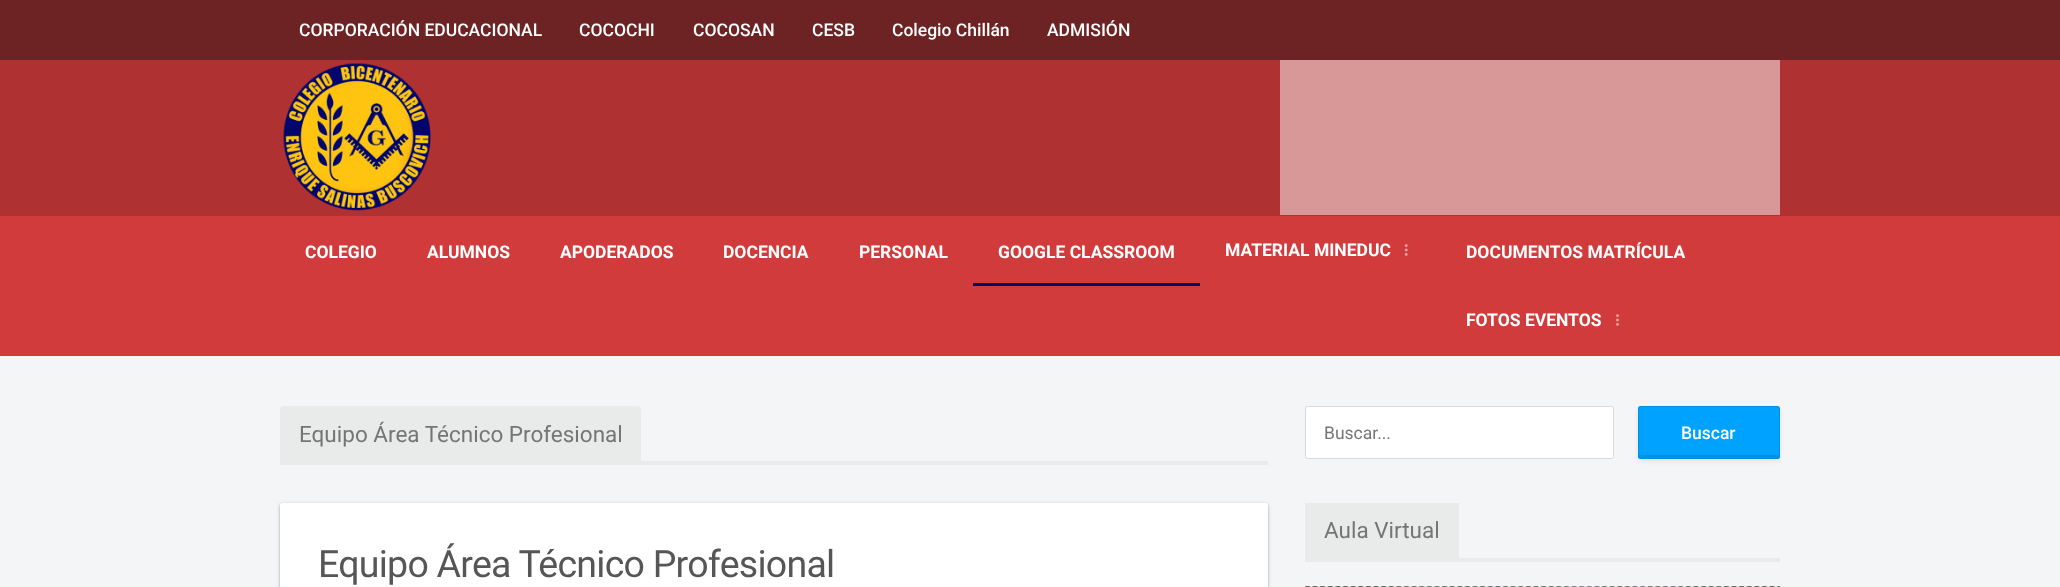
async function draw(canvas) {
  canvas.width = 2060
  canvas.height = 587
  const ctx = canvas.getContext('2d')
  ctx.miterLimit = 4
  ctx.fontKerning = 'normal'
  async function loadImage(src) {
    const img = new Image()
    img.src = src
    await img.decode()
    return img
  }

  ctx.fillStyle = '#b03131'
  ctx.fillRect(0, 0, 2060, 587)
  ctx.fillStyle = '#6d2323'
  ctx.fillRect(0, 0, 2060, 60)
  ctx.font = '500 17.5px Roboto'
  ctx.fillStyle = '#fff'
  ctx.fillText('CORPORACIÓN EDUCACIONAL', 299, 36)
  ctx.fillText('COCOCHI', 579, 36)
  ctx.fillText('COCOSAN', 693, 36)
  ctx.fillText('CESB', 812, 36)
  ctx.fillText('Colegio Chillán', 892, 36)
  ctx.fillText('ADMISIÓN', 1047, 36)
  ctx.drawImage(await loadImage('image0.png'), 283, 63, 148, 148)
  ctx.fillStyle = '#d89898'
  ctx.fillRect(1280, 60, 500, 155)
  ctx.fillStyle = '#d23b3b'
  ctx.fillRect(0, 216, 2060, 140)
  ctx.font = 'bold 17.5px Roboto'
  ctx.fillStyle = '#fff'
  ctx.fillText('COLEGIO', 305, 258)
  ctx.fillText('ALUMNOS', 427, 258)
  ctx.fillText('APODERADOS', 560, 258)
  ctx.fillText('DOCENCIA', 723, 258)
  ctx.fillText('PERSONAL', 859, 258)
  ctx.fillStyle = '#030159'
  ctx.fillRect(973, 283, 227, 3)
  ctx.fillStyle = '#fff'
  ctx.fillText('GOOGLE CLASSROOM', 998, 258)
  ctx.fillText('MATERIAL MINEDUC', 1225, 256)
  ctx.drawImage(await loadImage('image1.png'), 1404, 244, 4, 12)
  ctx.fillText('DOCUMENTOS MATRÍCULA', 1466, 258)
  ctx.fillText('FOTOS EVENTOS', 1466, 326)
  ctx.drawImage(await loadImage('image2.png'), 1616, 314, 3, 12)
  ctx.fillStyle = '#f4f5f6'
  ctx.fillRect(0, 356, 2060, 231)
  ctx.fillStyle = '#e9eaea'
  ctx.fillRect(280, 461, 988, 4)
  ctx.beginPath()
  ctx.roundRect(280, 406, 361, 55, [4, 4, 0, 0])
  ctx.fill()
  ctx.font = '22.5px Roboto'
  ctx.fillStyle = '#757575'
  ctx.fillText('Equipo Área Técnico Profesional', 299, 442)
  ctx.fillStyle = '#0000003d'
  ctx.filter = 'blur(1px)'
  ctx.beginPath()
  ctx.roundRect(280, 504, 988, 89, 2.5)
  ctx.fill()
  ctx.filter = 'none'
  ctx.fillStyle = '#0000001f'
  ctx.filter = 'blur(2px)'
  ctx.beginPath()
  ctx.roundRect(280, 504, 988, 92, 2.5)
  ctx.fill()
  ctx.filter = 'none'
  ctx.fillStyle = '#fff'
  ctx.beginPath()
  ctx.roundRect(280, 503, 988, 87, 2.5)
  ctx.fill()
  ctx.letterSpacing = '-0.75px'
  ctx.font = '37.5px Roboto'
  ctx.fillStyle = '#565656'
  ctx.fillText('Equipo Área Técnico Profesional', 318, 577)
  ctx.fillStyle = '#fff'
  ctx.beginPath()
  ctx.roundRect(1305.5, 406.5, 308, 52, 2)
  ctx.fill()
  ctx.strokeStyle = '#d8d8d8'
  ctx.stroke()
  ctx.letterSpacing = '0px'
  ctx.font = '17.5px Roboto'
  ctx.fillStyle = '#757575'
  ctx.fillText('Buscar...', 1324, 439)
  ctx.fillStyle = '#00000014'
  ctx.filter = 'blur(2.5px)'
  ctx.beginPath()
  ctx.roundRect(1638, 409, 142, 52, 2.5)
  ctx.fill()
  ctx.filter = 'none'
  ctx.fillStyle = '#00a2ff'
  ctx.beginPath()
  ctx.roundRect(1638, 406, 142, 53, 2.5)
  ctx.fill()
  ctx.fillStyle = '#0092e6'
  ctx.beginPath()
  ctx.moveTo(1639, 454)
  ctx.lineTo(1639, 457)
  ctx.bezierCurveTo(1639, 458, 1639, 458, 1640, 458)
  ctx.lineTo(1778, 458)
  ctx.bezierCurveTo(1779, 458, 1779, 458, 1779, 457)
  ctx.lineTo(1779, 454)
  ctx.lineTo(1778, 455)
  ctx.lineTo(1640, 455)
  ctx.closePath()
  ctx.fill()
  ctx.beginPath()
  ctx.roundRect(1638.5, 406.5, 141, 52, 2)
  ctx.strokeStyle = '#0000001a'
  ctx.stroke()
  ctx.font = '500 17.5px Roboto'
  ctx.fillStyle = '#fff'
  ctx.fillText('Buscar', 1681, 439)
  ctx.fillStyle = '#e9eaea'
  ctx.fillRect(1305, 558, 475, 4)
  ctx.fillRect(1305, 503, 154, 55)
  ctx.font = '22.5px Roboto'
  ctx.fillStyle = '#757575'
  ctx.fillText('Aula Virtual', 1324, 538)
  ctx.drawImage(await loadImage('image3.png'), 1305, 586, 475, 1)
}

draw(document.querySelector('canvas'))
